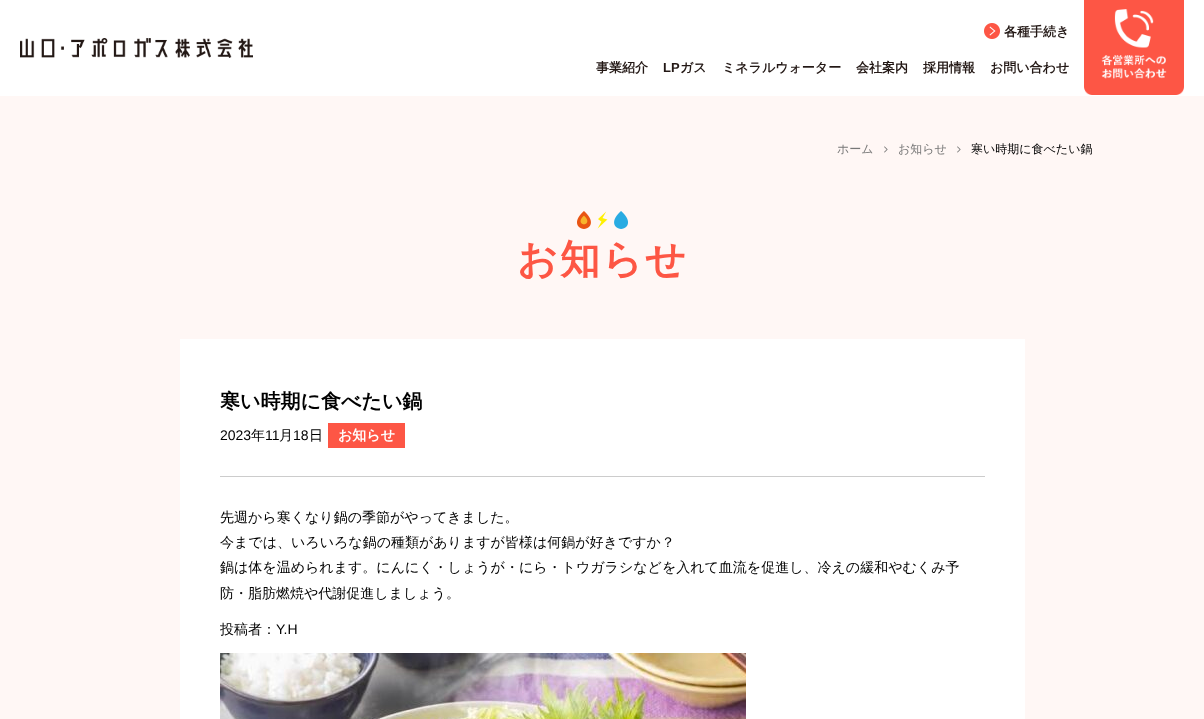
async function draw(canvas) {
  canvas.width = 1204
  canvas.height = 719
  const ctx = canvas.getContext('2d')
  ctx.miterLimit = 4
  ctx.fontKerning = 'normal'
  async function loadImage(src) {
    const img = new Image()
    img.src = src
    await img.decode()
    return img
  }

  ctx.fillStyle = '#fff7f5'
  ctx.fillRect(0, 0, 1204, 719)
  ctx.fillStyle = '#fff'
  ctx.fillRect(0, 0, 1204, 96)
  ctx.drawImage(await loadImage('image0.png'), 20, 38, 233, 20)
  ctx.drawImage(await loadImage('image1.png'), 984, 23, 16, 16)
  ctx.font = 'bold 13px WenQuanYi Zen Hei'
  ctx.fillStyle = '#231815'
  ctx.fillText('各種手続き', 1004, 36)
  ctx.fillText('事業紹介', 596, 72)
  ctx.font = 'bold 13px Liberation Sans'
  ctx.fillText('LP', 663, 72)
  ctx.font = 'bold 13px WenQuanYi Zen Hei'
  ctx.fillText('ガス', 680, 72)
  ctx.fillText('ミネラルウォーター', 722, 72)
  ctx.fillText('会社案内', 856, 72)
  ctx.fillText('採用情報', 923, 72)
  ctx.fillText('お問い合わせ', 990, 72)
  ctx.drawImage(await loadImage('image2.png'), 1084, 0, 100, 95)
  ctx.font = '500 12px WenQuanYi Zen Hei'
  ctx.fillStyle = '#777'
  ctx.fillText('ホーム', 837, 153)
  ctx.drawImage(await loadImage('image3.png'), 884, 146, 4, 7)
  ctx.fillText('お知らせ', 898, 153)
  ctx.drawImage(await loadImage('image3.png'), 957, 146, 4, 7)
  ctx.fillStyle = '#000'
  ctx.fillText('寒い時期に食べたい鍋', 971, 153)
  ctx.drawImage(await loadImage('image4.png'), 577, 211, 51, 18)
  ctx.letterSpacing = '2px'
  ctx.font = 'bold 40px WenQuanYi Zen Hei'
  ctx.fillStyle = '#fd5644'
  ctx.fillText('お知らせ', 517, 273)
  ctx.fillStyle = '#fff'
  ctx.fillRect(180, 339, 845, 380)
  ctx.letterSpacing = '0px'
  ctx.font = 'bold 20px WenQuanYi Zen Hei'
  ctx.fillStyle = '#000'
  ctx.fillText('寒い時期に食べたい鍋', 220, 408)
  ctx.font = '14px Liberation Sans'
  ctx.fillText('2023', 220, 440)
  ctx.font = '500 14px WenQuanYi Zen Hei'
  ctx.fillText('年', 251, 440)
  ctx.font = '14px Liberation Sans'
  ctx.fillText('11', 265, 440)
  ctx.font = '500 14px WenQuanYi Zen Hei'
  ctx.fillText('月', 279, 440)
  ctx.font = '14px Liberation Sans'
  ctx.fillText('18', 293, 440)
  ctx.font = '500 14px WenQuanYi Zen Hei'
  ctx.fillText('日', 309, 440)
  ctx.fillStyle = '#fd5645'
  ctx.fillRect(328, 423, 77, 25)
  ctx.font = 'bold 14px WenQuanYi Zen Hei'
  ctx.fillStyle = '#fff'
  ctx.fillText('お知らせ', 338, 440)
  ctx.fillStyle = '#ccc'
  ctx.fillRect(220, 476, 765, 1)
  ctx.font = '500 14px WenQuanYi Zen Hei'
  ctx.fillStyle = '#000'
  ctx.fillText('先週から寒くなり鍋の季節がやってきました。', 220, 522)
  ctx.fillText('今までは、いろいろな鍋の種類がありますが皆様は何鍋が好きですか？', 220, 547)
  ctx.fillText('鍋は体を温められます。にんにく・しょうが・にら・トウガラシなどを入れて血流を促進し、冷えの緩和やむくみ予', 220, 572)
  ctx.fillText('防・脂肪燃焼や代謝促進しましょう。', 220, 598)
  ctx.fillText('投稿者：', 220, 634)
  ctx.font = '14px Liberation Sans'
  ctx.fillText('Y.H', 276, 634)
  ctx.drawImage(await loadImage('image5.png'), 220, 653, 526, 66)
}

draw(document.querySelector('canvas'))
